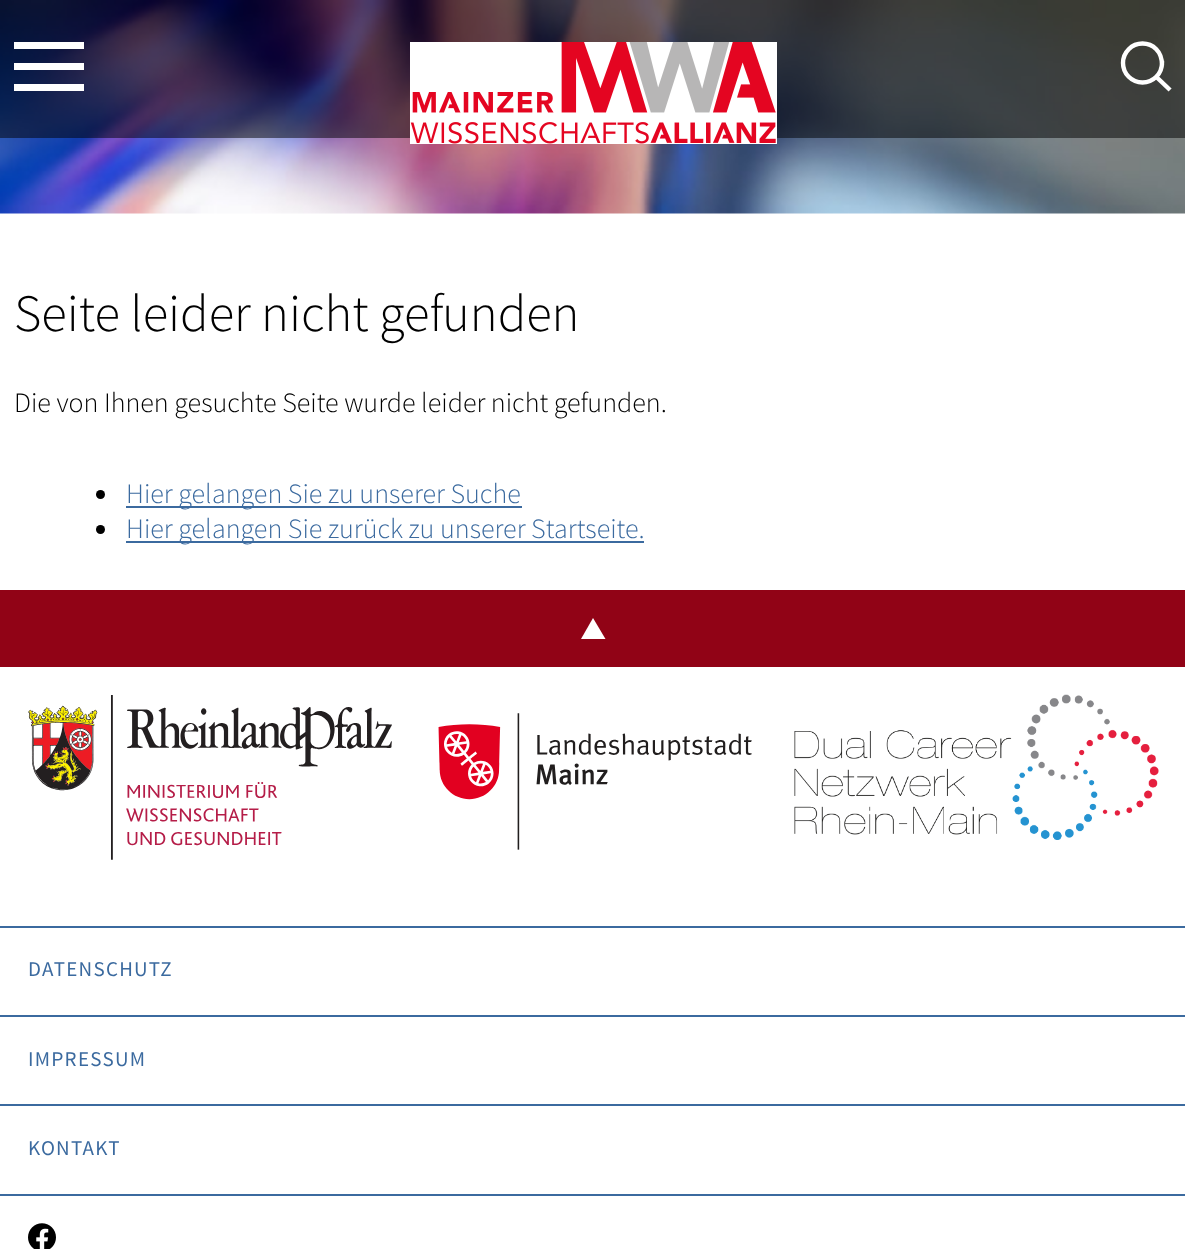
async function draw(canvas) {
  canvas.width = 1185
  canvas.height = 1249
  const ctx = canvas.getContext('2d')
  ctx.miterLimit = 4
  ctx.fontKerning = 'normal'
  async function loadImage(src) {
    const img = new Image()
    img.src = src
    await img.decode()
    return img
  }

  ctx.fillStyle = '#fff'
  ctx.fillRect(0, 0, 1185, 1249)
  ctx.drawImage(await loadImage('image0.png'), 0, 0, 1185, 214)
  ctx.fillStyle = '#00000080'
  ctx.fillRect(0, 0, 1185, 138)
  ctx.beginPath()
  ctx.moveTo(1158, 78.5)
  ctx.lineTo(1168.5, 88.5)
  ctx.strokeStyle = '#fff'
  ctx.lineWidth = 4.4
  ctx.lineCap = 'square'
  ctx.stroke()
  ctx.beginPath()
  ctx.arc(1142.5, 63, 19.5, 0, 2 * Math.PI)
  ctx.stroke()
  ctx.fillStyle = '#fff'
  ctx.fillRect(410, 42, 367, 102)
  ctx.drawImage(await loadImage('image1.png'), 410, 42, 366, 102)
  ctx.fillRect(14, 42, 70, 7)
  ctx.fillRect(14, 63, 70, 7)
  ctx.fillRect(14, 84, 70, 7)
  ctx.font = '300 52.5px Source Sans Pro'
  ctx.fillStyle = '#000'
  ctx.fillText('Seite leider nicht gefunden', 14, 331)
  ctx.font = '300 28px Source Sans Pro'
  ctx.fillText('Die von Ihnen gesuchte Seite wurde leider nicht gefunden.', 14, 412)
  ctx.beginPath()
  ctx.arc(100.5, 494.5, 4.5, 0, 2 * Math.PI)
  ctx.fill()
  ctx.fillStyle = '#3b6a9f'
  ctx.fillRect(126, 506, 396, 2)
  ctx.fillText('Hier gelangen Sie zu unserer Suche', 126, 503)
  ctx.fillStyle = '#000'
  ctx.beginPath()
  ctx.arc(100.5, 529.5, 4.5, 0, 2 * Math.PI)
  ctx.fill()
  ctx.fillStyle = '#3b6a9f'
  ctx.fillRect(126, 541, 518, 2)
  ctx.fillText('Hier gelangen Sie zurück zu unserer Startseite.', 126, 538)
  ctx.fillStyle = '#910316'
  ctx.fillRect(0, 590, 1185, 77)
  ctx.fillStyle = '#fff'
  ctx.beginPath()
  ctx.moveTo(605.5, 639)
  ctx.lineTo(581, 639)
  ctx.lineTo(593, 618)
  ctx.closePath()
  ctx.fill()
  ctx.drawImage(await loadImage('image2.png'), 28, 695, 364, 165)
  ctx.drawImage(await loadImage('image3.png'), 438, 713, 314, 137)
  ctx.drawImage(await loadImage('image4.png'), 794, 694, 365, 146)
  ctx.fillStyle = '#3b6a9f'
  ctx.fillRect(0, 926, 1185, 2)
  ctx.letterSpacing = '1.25px'
  ctx.font = '21px Source Sans Pro'
  ctx.fillText('DATENSCHUTZ', 28, 976)
  ctx.fillRect(0, 1015, 1185, 2)
  ctx.fillText('IMPRESSUM', 28, 1066)
  ctx.fillRect(0, 1104, 1185, 2)
  ctx.fillText('KONTAKT', 28, 1155)
  ctx.fillRect(0, 1194, 1185, 2)
  ctx.drawImage(await loadImage('image5.png'), 28, 1223, 28, 26)
}

draw(document.querySelector('canvas'))
